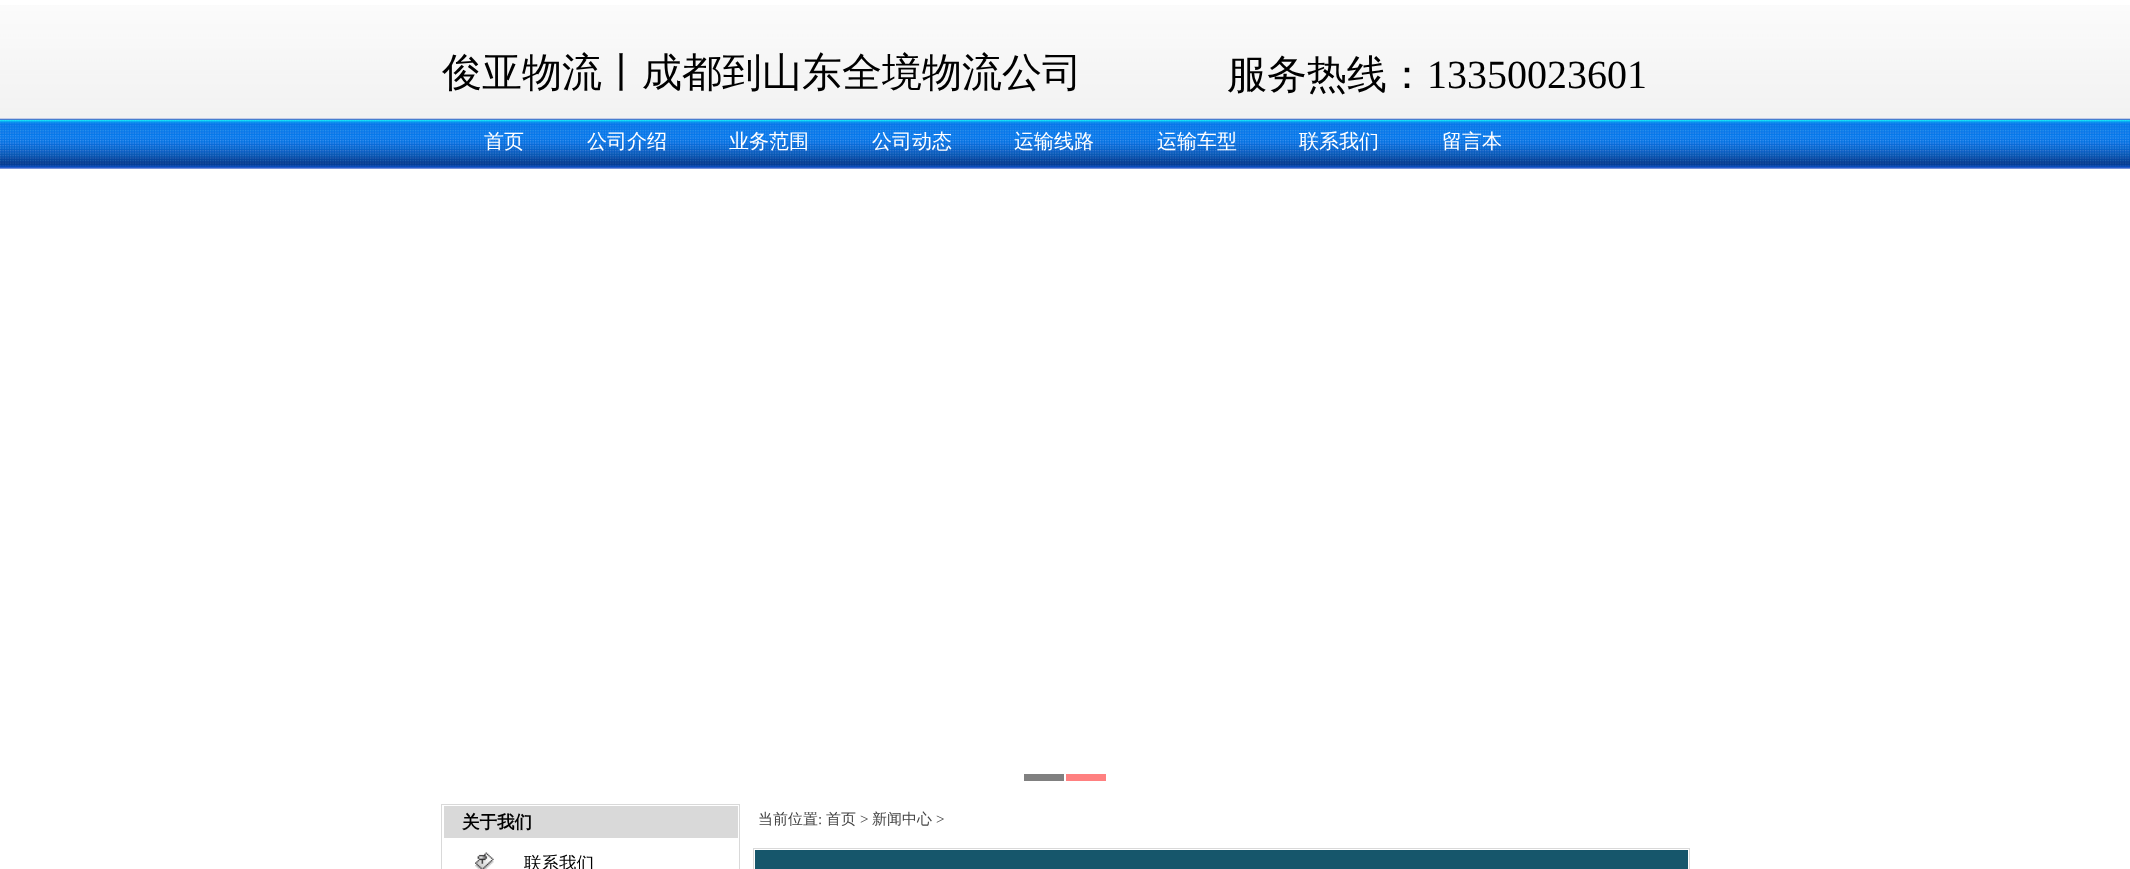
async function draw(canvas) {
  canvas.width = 2130
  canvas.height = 869
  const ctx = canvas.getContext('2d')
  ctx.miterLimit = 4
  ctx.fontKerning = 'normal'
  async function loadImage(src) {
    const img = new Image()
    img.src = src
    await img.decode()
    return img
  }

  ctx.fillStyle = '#fff'
  ctx.fillRect(0, 0, 2130, 869)
  ctx.drawImage(await loadImage('image0.png'), 0, 5, 2130, 164)
  ctx.font = '500 40px WenQuanYi Zen Hei'
  ctx.fillStyle = '#000'
  ctx.fillText('俊亚物流丨成都到山东全境物流公司', 442, 86)
  ctx.fillText('服务热线：', 1227, 88)
  ctx.font = '40px Liberation Serif'
  ctx.fillText('13350023601', 1427, 88)
  ctx.font = '500 20px WenQuanYi Zen Hei'
  ctx.fillStyle = '#fff'
  ctx.fillText('首页', 484, 148)
  ctx.fillText('公司介绍', 587, 148)
  ctx.fillText('业务范围', 729, 148)
  ctx.fillText('公司动态', 872, 148)
  ctx.fillText('运输线路', 1014, 148)
  ctx.fillText('运输车型', 1157, 148)
  ctx.fillText('联系我们', 1299, 148)
  ctx.fillText('留言本', 1442, 148)
  ctx.fillStyle = '#808080'
  ctx.fillRect(1024, 774, 40, 7)
  ctx.fillStyle = '#ff8080'
  ctx.fillRect(1066, 774, 40, 7)
  ctx.strokeStyle = '#d9d9d9'
  ctx.strokeRect(441.5, 804.5, 298, 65)
  ctx.fillStyle = '#d9d9d9'
  ctx.fillRect(444, 806, 294, 32)
  ctx.font = 'bold 17.5px WenQuanYi Zen Hei'
  ctx.fillStyle = '#000'
  ctx.fillText('关于我们', 462, 828)
  ctx.drawImage(await loadImage('image1.png'), 475, 852, 19, 17)
  ctx.font = '500 17.5px WenQuanYi Zen Hei'
  ctx.fillText('联系我们', 524, 869)
  ctx.font = '500 15px WenQuanYi Zen Hei'
  ctx.fillStyle = '#434343'
  ctx.fillText('当前位置', 758, 824)
  ctx.font = '15px Liberation Serif'
  ctx.fillText(':', 818, 824)
  ctx.font = '500 15px WenQuanYi Zen Hei'
  ctx.fillText('首页', 826, 824)
  ctx.font = '15px Liberation Serif'
  ctx.fillText('>', 860, 824)
  ctx.font = '500 15px WenQuanYi Zen Hei'
  ctx.fillText('新闻中心', 872, 824)
  ctx.font = '15px Liberation Serif'
  ctx.fillText('>', 936, 824)
  ctx.strokeRect(753.5, 848.5, 936, 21)
  ctx.fillStyle = '#16566b'
  ctx.fillRect(755, 850, 933, 19)
}

draw(document.querySelector('canvas'))
